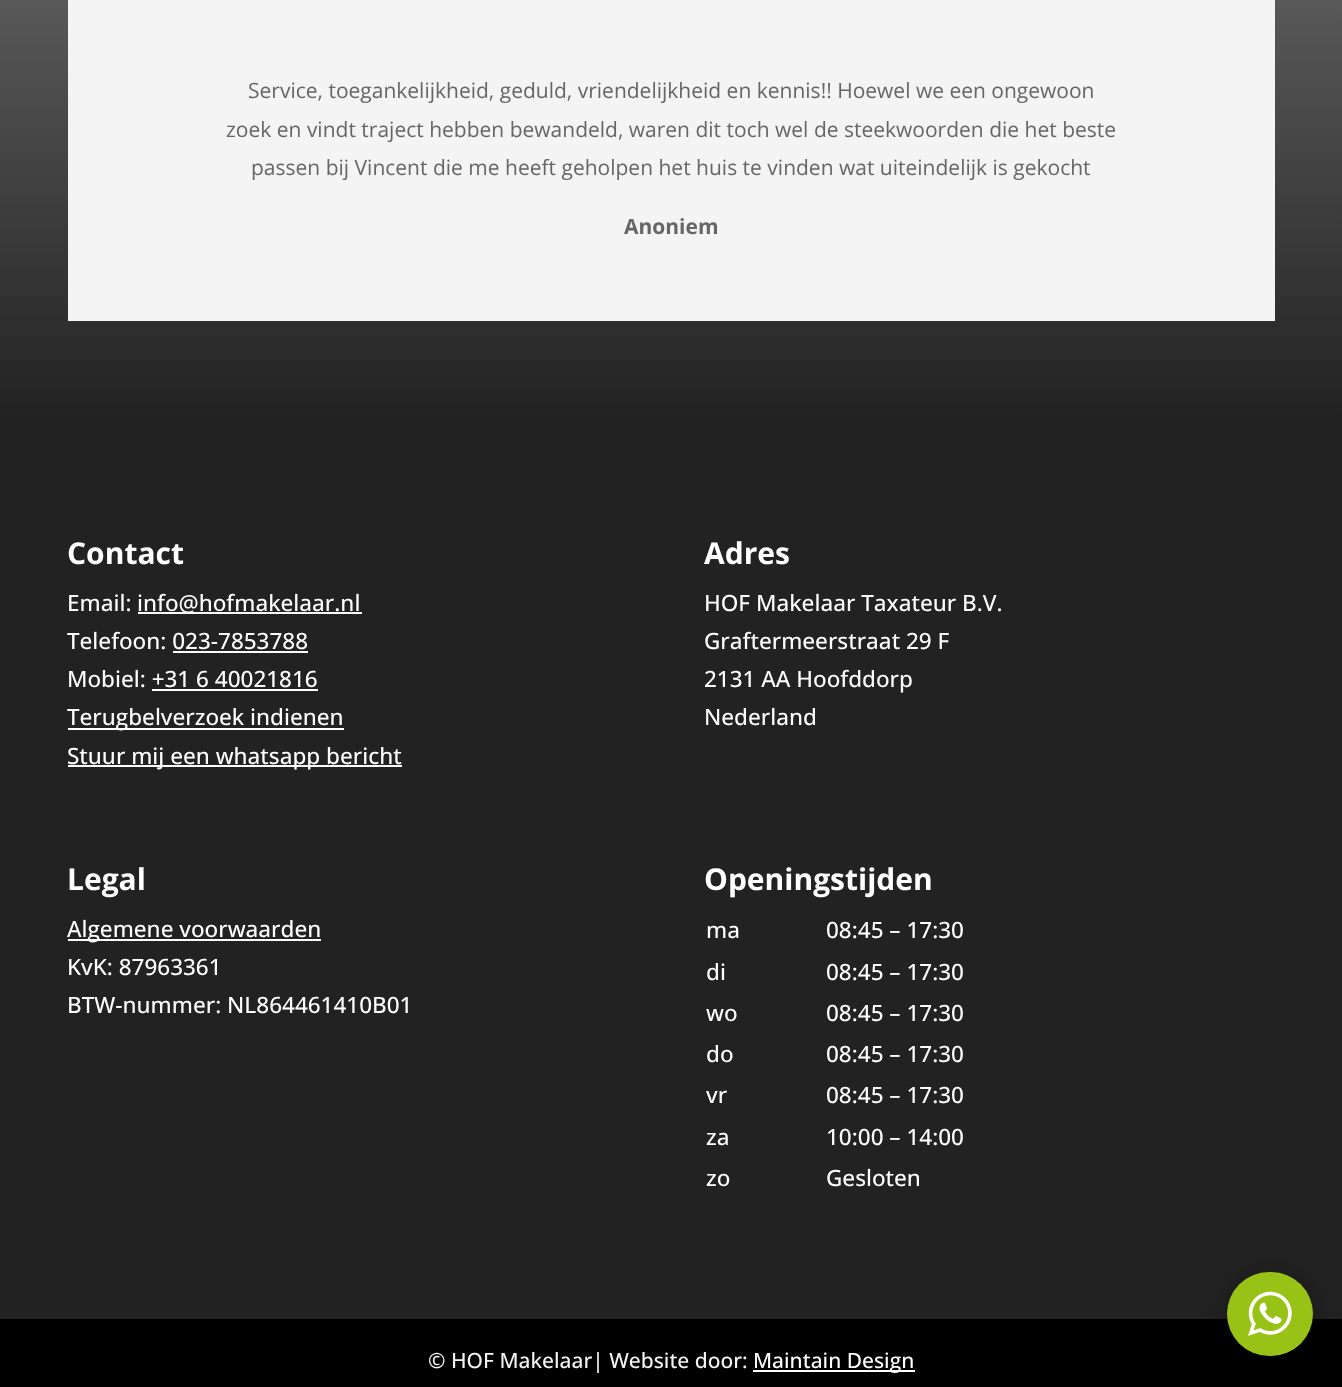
async function draw(canvas) {
  canvas.width = 1342
  canvas.height = 1387
  const ctx = canvas.getContext('2d')
  ctx.miterLimit = 4
  ctx.fontKerning = 'normal'
  async function loadImage(src) {
    const img = new Image()
    img.src = src
    await img.decode()
    return img
  }
  let gradient

  ctx.fillStyle = '#fff'
  ctx.fillRect(0, 0, 1342, 1387)
  gradient = ctx.createLinearGradient(671, -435, 671, 419)
  gradient.addColorStop(0, '#919191')
  gradient.addColorStop(1, '#222')
  ctx.fillStyle = gradient
  ctx.fillRect(0, 0, 1342, 419)
  ctx.fillStyle = '#f4f4f4'
  ctx.fillRect(68, 0, 1207, 321)
  ctx.font = '21px Open Sans'
  ctx.fillStyle = '#666'
  ctx.fillText('Service, toegankelijkheid, geduld, vriendelijkheid en kennis!! Hoewel we een ongewoon', 248, 98)
  ctx.fillText('zoek en vindt traject hebben bewandeld, waren dit toch wel de steekwoorden die het beste', 226, 137)
  ctx.fillText('passen bij Vincent die me heeft geholpen het huis te vinden wat uiteindelijk is gekocht', 251, 175)
  ctx.font = 'bold 21px Open Sans'
  ctx.fillText('Anoniem', 624, 234)
  ctx.fillStyle = '#222'
  ctx.fillRect(0, 419, 1342, 900)
  ctx.font = 'bold 30px Open Sans'
  ctx.fillStyle = '#fff'
  ctx.fillText('Contact', 67, 564)
  ctx.font = '500 22.5px Open Sans'
  ctx.fillText('Email:', 67, 611)
  ctx.fillRect(138, 612, 224, 2)
  ctx.fillText('info@hofmakelaar.nl', 137, 611)
  ctx.fillText('Telefoon: 023-7853788', 67, 649)
  ctx.fillRect(173, 651, 135, 2)
  ctx.fillText('Mobiel: +31 6 40021816', 67, 687)
  ctx.fillRect(152, 689, 166, 2)
  ctx.fillRect(68, 728, 276, 2)
  ctx.fillText('Terugbelverzoek indienen', 67, 725)
  ctx.fillRect(68, 765, 334, 2)
  ctx.fillText('Stuur mij een whatsapp bericht', 67, 764)
  ctx.fillStyle = '#000'
  ctx.fillRect(0, 1319, 1342, 68)
  ctx.fillStyle = '#0000004d'
  ctx.filter = 'blur(13.5px)'
  ctx.beginPath()
  ctx.roundRect(1227, 1275, 86, 84, 42)
  ctx.fill()
  ctx.filter = 'none'
  ctx.fillStyle = '#98c316'
  ctx.beginPath()
  ctx.roundRect(1227, 1272, 86, 84, 42)
  ctx.fill()
  ctx.drawImage(await loadImage('image0.png'), 1248, 1291, 44, 45)
  ctx.font = 'bold 30px Open Sans'
  ctx.fillStyle = '#fff'
  ctx.fillText('Adres', 704, 564)
  ctx.font = '500 22.5px Open Sans'
  ctx.fillText('HOF Makelaar Taxateur B.V.', 704, 611)
  ctx.fillText('Graftermeerstraat 29 F', 704, 649)
  ctx.fillText('2131 AA Hoofddorp', 704, 687)
  ctx.fillText('Nederland', 704, 725)
  ctx.font = 'bold 30px Open Sans'
  ctx.fillText('Legal', 67, 890)
  ctx.fillRect(68, 939, 253, 2)
  ctx.font = '500 22.5px Open Sans'
  ctx.fillText('Algemene voorwaarden', 67, 937)
  ctx.fillText('KvK: 87963361', 67, 975)
  ctx.fillText('BTW-nummer: NL864461410B01', 67, 1013)
  ctx.font = 'bold 30px Open Sans'
  ctx.fillText('Openingstijden', 704, 890)
  ctx.font = '500 22.5px Open Sans'
  ctx.fillText('ma', 706, 938)
  ctx.fillText('08:45 – 17:30', 826, 938)
  ctx.fillText('di', 706, 980)
  ctx.fillText('08:45 – 17:30', 826, 980)
  ctx.fillText('wo', 706, 1021)
  ctx.fillText('08:45 – 17:30', 826, 1021)
  ctx.fillText('do', 706, 1062)
  ctx.fillText('08:45 – 17:30', 826, 1062)
  ctx.fillText('vr', 706, 1103)
  ctx.fillText('08:45 – 17:30', 826, 1103)
  ctx.fillText('za', 706, 1145)
  ctx.fillText('10:00 – 14:00', 826, 1145)
  ctx.fillText('zo', 706, 1186)
  ctx.fillText('Gesloten', 826, 1186)
  ctx.font = '500 21px Open Sans'
  ctx.fillStyle = '#f4f4f4'
  ctx.fillText('© HOF Makelaar| Website door:', 428, 1368)
  ctx.fillStyle = '#fff'
  ctx.fillRect(753, 1370, 162, 2)
  ctx.fillText('Maintain Design', 753, 1368)
}

draw(document.querySelector('canvas'))
